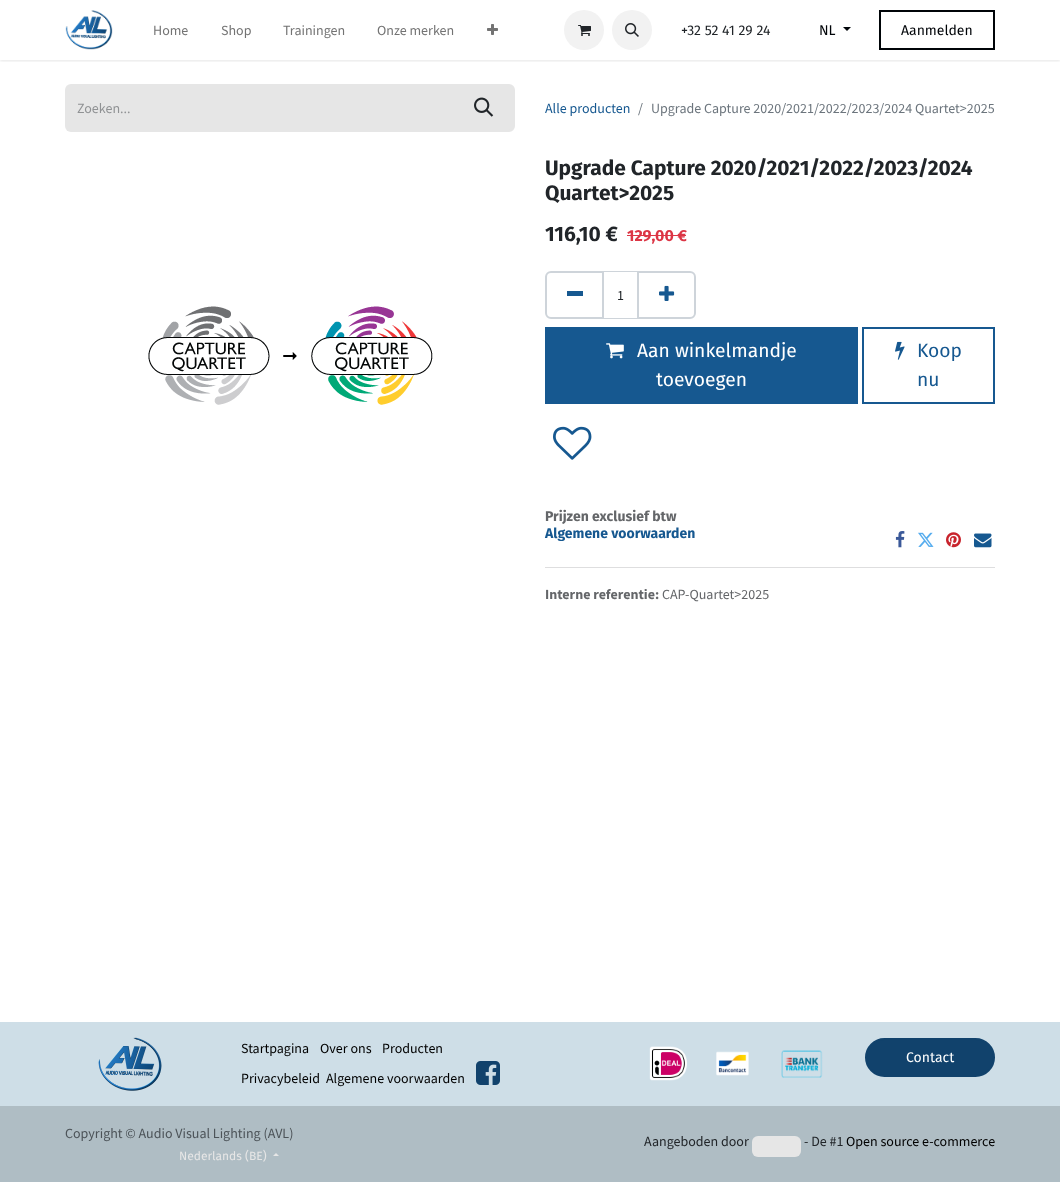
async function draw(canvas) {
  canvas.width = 1060
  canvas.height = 1182
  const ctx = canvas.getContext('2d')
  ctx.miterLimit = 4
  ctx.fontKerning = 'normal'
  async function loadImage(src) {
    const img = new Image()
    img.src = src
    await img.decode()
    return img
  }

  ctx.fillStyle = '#fff'
  ctx.fillRect(0, 0, 1060, 1182)
  ctx.save()
  ctx.beginPath()
  ctx.rect(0, 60, 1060, 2)
  ctx.clip()
  ctx.fillStyle = '#0000001a'
  ctx.filter = 'blur(1.5px)'
  ctx.beginPath()
  ctx.rect(0, 1, 1060, 60)
  ctx.fill()
  ctx.filter = 'none'
  ctx.restore()
  ctx.drawImage(await loadImage('image0.png'), 65, 10, 48, 40)
  ctx.font = '14px Source Sans Pro'
  ctx.fillStyle = '#737373'
  ctx.fillText('Home', 153, 35)
  ctx.fillText('Shop', 221, 35)
  ctx.fillText('Trainingen', 283, 35)
  ctx.fillText('Onze merken', 377, 35)
  ctx.drawImage(await loadImage('image1.png'), 487, 24, 11, 11)
  ctx.fillStyle = '#f2f2f2'
  ctx.beginPath()
  ctx.arc(584, 30, 20, 0, 2 * Math.PI)
  ctx.fill()
  ctx.drawImage(await loadImage('image2.png'), 578, 25, 13, 11)
  ctx.beginPath()
  ctx.arc(632, 30, 20, 0, 2 * Math.PI)
  ctx.fill()
  ctx.drawImage(await loadImage('image3.png'), 625, 23, 14, 14)
  ctx.font = '14px Fira Sans'
  ctx.fillStyle = '#212529'
  ctx.fillText('+32 52 41 29 24', 681, 35)
  ctx.fillStyle = '#000408'
  ctx.fillText('NL', 819, 35)
  ctx.beginPath()
  ctx.moveTo(843, 27)
  ctx.lineTo(851, 27)
  ctx.lineTo(847, 31)
  ctx.closePath()
  ctx.fill()
  ctx.beginPath()
  ctx.rect(880, 11, 114, 38)
  ctx.strokeStyle = '#000408'
  ctx.lineWidth = 2
  ctx.stroke()
  ctx.fillText('Aanmelden', 901, 35)
  ctx.fillStyle = '#e6e6e6'
  ctx.beginPath()
  ctx.roundRect(65, 84, 388, 48, [6, 0, 0, 6])
  ctx.fill()
  ctx.font = '14px Source Sans Pro'
  ctx.fillStyle = '#909294'
  ctx.fillText('Zoeken...', 77, 113)
  ctx.fillStyle = '#e6e6e6'
  ctx.beginPath()
  ctx.roundRect(453, 85, 61, 46, [0, 5, 5, 0])
  ctx.fill()
  ctx.strokeStyle = '#e6e6e6'
  ctx.stroke()
  ctx.drawImage(await loadImage('image4.png'), 474, 97, 20, 20)
  ctx.fillStyle = '#165890'
  ctx.fillText('Alle producten', 545, 113)
  ctx.fillStyle = '#6c757d'
  ctx.fillText('/', 638, 113)
  ctx.fillText('Upgrade Capture 2020/2021/2022/2023/2024 Quartet>2025', 651, 113)
  ctx.drawImage(await loadImage('image5.png'), 148, 306, 285, 99)
  ctx.font = 'bold 20.9px Fira Sans'
  ctx.fillStyle = '#212529'
  ctx.fillText('Upgrade Capture 2020/2021/2022/2023/2024', 545, 175)
  ctx.fillText('Quartet>2025', 545, 200)
  ctx.fillText('116,10 €', 545, 241)
  ctx.font = 'bold 16px Fira Sans'
  ctx.fillStyle = '#dc3545'
  ctx.fillText('129,00 €', 627, 241)
  ctx.fillRect(627, 235, 59, 1)
  ctx.strokeStyle = '#ced4da'
  ctx.lineWidth = 1
  ctx.strokeRect(603.5, 271.5, 34, 47)
  ctx.beginPath()
  ctx.roundRect(546, 272, 57, 46, [5, 0, 0, 5])
  ctx.lineWidth = 2
  ctx.stroke()
  ctx.fillStyle = '#165890'
  ctx.fillRect(567, 291, 16, 5)
  ctx.font = '14px Source Sans Pro'
  ctx.fillStyle = '#212529'
  ctx.fillText('1', 617, 300)
  ctx.beginPath()
  ctx.roundRect(638, 272, 57, 46, [0, 5, 5, 0])
  ctx.stroke()
  ctx.drawImage(await loadImage('image6.png'), 659, 285, 16, 16)
  ctx.fillStyle = '#165890'
  ctx.beginPath()
  ctx.rect(546, 328, 311, 75)
  ctx.fill()
  ctx.strokeStyle = '#165890'
  ctx.stroke()
  ctx.drawImage(await loadImage('image7.png'), 606, 343, 18, 16)
  ctx.font = '19.25px Fira Sans'
  ctx.fillStyle = '#fff'
  ctx.fillText('Aan winkelmandje', 637, 357)
  ctx.fillText('toevoegen', 656, 386)
  ctx.beginPath()
  ctx.rect(863, 328, 131, 75)
  ctx.stroke()
  ctx.drawImage(await loadImage('image8.png'), 895, 341, 10, 19)
  ctx.fillStyle = '#165890'
  ctx.fillText('Koop', 917, 357)
  ctx.fillText('nu', 917, 386)
  ctx.drawImage(await loadImage('image9.png'), 553, 426, 39, 34)
  ctx.font = 'bold 14px Fira Sans'
  ctx.fillStyle = '#646669'
  ctx.fillText('Prijzen exclusief btw', 545, 521)
  ctx.fillStyle = '#165890'
  ctx.fillText('Algemene voorwaarden', 545, 538)
  ctx.drawImage(await loadImage('image10.png'), 895, 531, 10, 17)
  ctx.drawImage(await loadImage('image11.png'), 918, 532, 16, 15)
  ctx.drawImage(await loadImage('image12.png'), 946, 532, 15, 16)
  ctx.drawImage(await loadImage('image13.png'), 974, 533, 18, 15)
  ctx.fillStyle = '#dededf'
  ctx.fillRect(545, 567, 450, 1)
  ctx.font = 'bold 14px Source Sans Pro'
  ctx.fillStyle = '#646669'
  ctx.fillText('Interne referentie:', 545, 599)
  ctx.font = '14px Source Sans Pro'
  ctx.fillText('CAP-Quartet>2025', 662, 599)
  ctx.fillStyle = '#cedee7'
  ctx.fillRect(0, 1022, 1060, 84)
  ctx.drawImage(await loadImage('image14.png'), 98, 1037, 64, 54)
  ctx.fillStyle = '#000'
  ctx.fillText('Startpagina', 241, 1053)
  ctx.fillText('Over ons', 320, 1053)
  ctx.fillText('Producten', 382, 1053)
  ctx.fillText('Privacybeleid', 241, 1083)
  ctx.fillText('Algemene voorwaarden', 326, 1083)
  ctx.drawImage(await loadImage('image15.png'), 476, 1061, 24, 24)
  ctx.drawImage(await loadImage('image16.png'), 649, 1046, 38, 35)
  ctx.drawImage(await loadImage('image17.png'), 716, 1051, 33, 25)
  ctx.drawImage(await loadImage('image18.png'), 781, 1050, 42, 28)
  ctx.fillStyle = '#11426c'
  ctx.beginPath()
  ctx.roundRect(866, 1039, 128, 37, 18.5)
  ctx.fill()
  ctx.strokeStyle = '#11426c'
  ctx.stroke()
  ctx.font = '14px Fira Sans'
  ctx.fillStyle = '#fff'
  ctx.fillText('Contact', 906, 1062)
  ctx.fillStyle = '#afbdc4'
  ctx.fillRect(0, 1106, 1060, 76)
  ctx.font = '14px Source Sans Pro'
  ctx.fillStyle = '#4c5358'
  ctx.fillText('Copyright © Audio Visual Lighting (AVL)', 65, 1138)
  ctx.font = '12px Fira Sans'
  ctx.fillStyle = '#e6e6e6'
  ctx.fillText('Nederlands (BE)', 179, 1160)
  ctx.beginPath()
  ctx.moveTo(279, 1156)
  ctx.lineTo(273, 1156)
  ctx.lineTo(276, 1153)
  ctx.closePath()
  ctx.fill()
  ctx.font = '14px Source Sans Pro'
  ctx.fillStyle = '#212529'
  ctx.fillText('Aangeboden door', 644, 1146)
  ctx.fillStyle = '#e6e6e6'
  ctx.beginPath()
  ctx.roundRect(752, 1136, 49, 21, 6)
  ctx.fill()
  ctx.fillStyle = '#212529'
  ctx.fillText('- De #1', 804, 1146)
  ctx.fillStyle = '#000'
  ctx.fillText('Open source e-commerce', 846, 1146)
}

draw(document.querySelector('canvas'))
